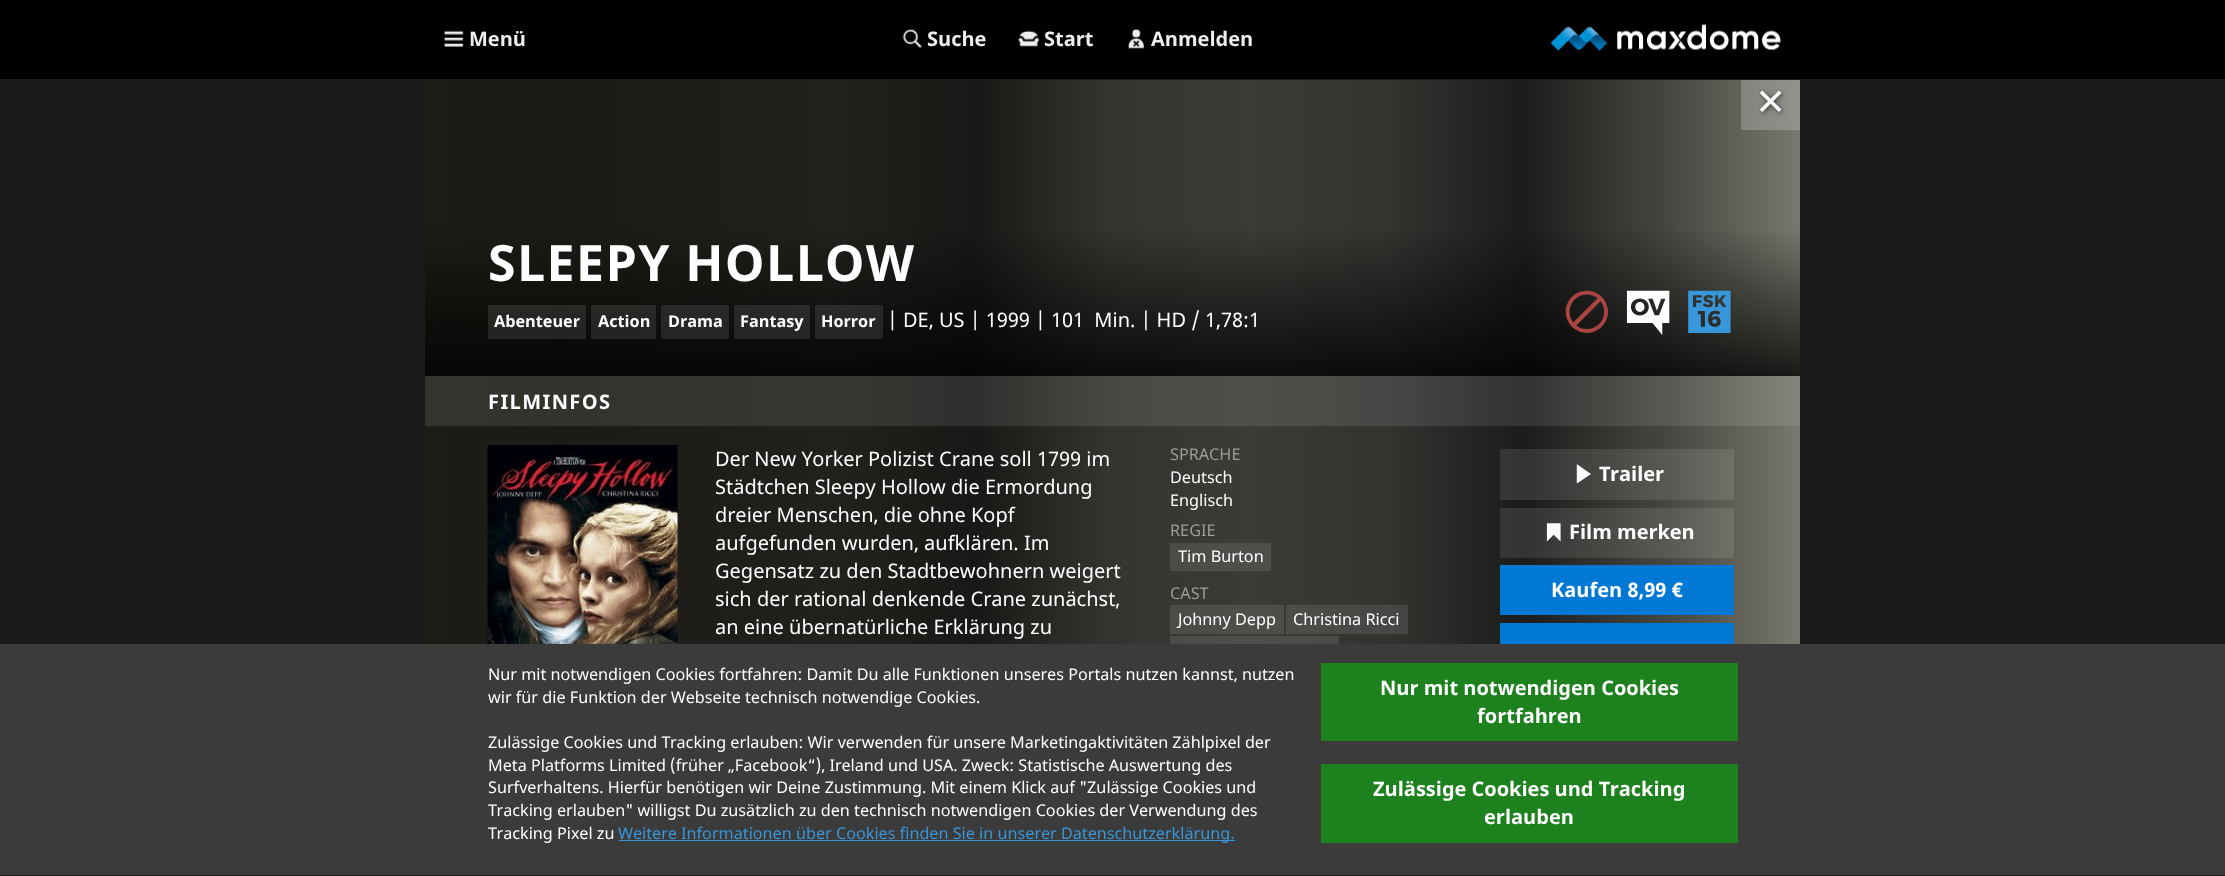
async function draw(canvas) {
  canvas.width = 2225
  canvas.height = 876
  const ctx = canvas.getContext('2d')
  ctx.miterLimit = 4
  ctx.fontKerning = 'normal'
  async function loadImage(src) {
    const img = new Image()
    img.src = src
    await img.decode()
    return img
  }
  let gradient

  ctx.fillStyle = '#1b1b1b'
  ctx.fillRect(0, 0, 2225, 876)
  ctx.fillStyle = '#000'
  ctx.fillRect(0, 0, 2225, 79)
  ctx.drawImage(await loadImage('image0.png'), 443, 30, 21, 17)
  ctx.font = 'bold 20px Noto Sans'
  ctx.fillStyle = '#eee'
  ctx.fillText('Menü', 469, 46)
  ctx.drawImage(await loadImage('image1.png'), 902, 29, 20, 19)
  ctx.fillText('Suche', 927, 46)
  ctx.drawImage(await loadImage('image2.png'), 1018, 30, 21, 17)
  ctx.fillText('Start', 1044, 46)
  ctx.drawImage(await loadImage('image3.png'), 1128, 29, 17, 20)
  ctx.fillText('Anmelden', 1151, 46)
  ctx.drawImage(await loadImage('image4.png'), 1550, 24, 231, 27)
  gradient = ctx.createLinearGradient(425, 226, 1800, 226)
  gradient.addColorStop(0, '#1e1c17')
  gradient.addColorStop(0.1, '#1d1b16')
  gradient.addColorStop(0.2, '#1f1d19')
  gradient.addColorStop(0.3, '#22211d')
  gradient.addColorStop(0.4, '#191816')
  gradient.addColorStop(0.5, '#343530')
  gradient.addColorStop(0.6, '#3b3c37')
  gradient.addColorStop(0.7, '#333430')
  gradient.addColorStop(0.8, '#1c1c1b')
  gradient.addColorStop(0.9, '#454540')
  gradient.addColorStop(1, '#78786f')
  ctx.fillStyle = gradient
  ctx.fillRect(425, 80, 1375, 296)
  gradient = ctx.createLinearGradient(425, 226, 1800, 226)
  gradient.addColorStop(0, '#54534f')
  gradient.addColorStop(0.1, '#53524e')
  gradient.addColorStop(0.2, '#555351')
  gradient.addColorStop(0.3, '#575653')
  gradient.addColorStop(0.4, '#51504e')
  gradient.addColorStop(0.5, '#636461')
  gradient.addColorStop(0.6, '#686966')
  gradient.addColorStop(0.7, '#636361')
  gradient.addColorStop(0.8, '#535352')
  gradient.addColorStop(0.9, '#6f6f6c')
  gradient.addColorStop(1, '#93938d')
  ctx.fillStyle = gradient
  ctx.fillRect(1741, 80, 59, 50)
  ctx.drawImage(await loadImage('image5.png'), 1758, 89, 27, 27)
  gradient = ctx.createLinearGradient(1113, 74, 1113, 378)
  gradient.addColorStop(0, '#00000000')
  gradient.addColorStop(0.5, '#00000000')
  gradient.addColorStop(1, '#000000cc')
  ctx.fillStyle = gradient
  ctx.fillRect(425, 230, 1375, 146)
  ctx.letterSpacing = '1.4px'
  ctx.font = 'bold 50px Noto Sans'
  ctx.fillStyle = '#fff'
  ctx.fillText('SLEEPY HOLLOW', 488, 281)
  ctx.fillStyle = '#ffffff1a'
  ctx.fillRect(488, 305, 98, 34)
  ctx.letterSpacing = '0px'
  ctx.font = 'bold 16.25px Noto Sans'
  ctx.fillStyle = '#fff'
  ctx.fillText('Abenteuer', 494, 327)
  ctx.fillStyle = '#ffffff1a'
  ctx.fillRect(591, 305, 65, 34)
  ctx.fillStyle = '#fff'
  ctx.fillText('Action', 598, 327)
  ctx.fillStyle = '#ffffff1a'
  ctx.fillRect(661, 305, 68, 34)
  ctx.fillStyle = '#fff'
  ctx.fillText('Drama', 668, 327)
  ctx.fillStyle = '#ffffff1a'
  ctx.fillRect(734, 305, 76, 34)
  ctx.fillStyle = '#fff'
  ctx.fillText('Fantasy', 740, 327)
  ctx.fillStyle = '#ffffff1a'
  ctx.fillRect(815, 305, 68, 34)
  ctx.fillStyle = '#fff'
  ctx.fillText('Horror', 821, 327)
  ctx.font = '20px Noto Sans'
  ctx.fillText('| DE, US | 1999 | 101  Min. | HD / 1,78:1', 887, 327)
  ctx.drawImage(await loadImage('image6.png'), 1565, 290, 43, 43)
  ctx.drawImage(await loadImage('image7.png'), 1626, 290, 44, 45)
  ctx.drawImage(await loadImage('image8.png'), 1688, 290, 43, 43)
  gradient = ctx.createLinearGradient(425, 584, 1800, 584)
  gradient.addColorStop(0, '#1e1c17')
  gradient.addColorStop(0.1, '#1d1b16')
  gradient.addColorStop(0.2, '#1f1d19')
  gradient.addColorStop(0.3, '#22211d')
  gradient.addColorStop(0.4, '#191816')
  gradient.addColorStop(0.5, '#343530')
  gradient.addColorStop(0.6, '#3b3c37')
  gradient.addColorStop(0.7, '#333430')
  gradient.addColorStop(0.8, '#1c1c1b')
  gradient.addColorStop(0.9, '#454540')
  gradient.addColorStop(1, '#78786f')
  ctx.fillStyle = gradient
  ctx.fillRect(425, 426, 1375, 218)
  gradient = ctx.createLinearGradient(425, 584, 1800, 584)
  gradient.addColorStop(0, '#35332e')
  gradient.addColorStop(0.1, '#34322d')
  gradient.addColorStop(0.2, '#353430')
  gradient.addColorStop(0.3, '#383734')
  gradient.addColorStop(0.4, '#302f2d')
  gradient.addColorStop(0.5, '#484945')
  gradient.addColorStop(0.6, '#4f504b')
  gradient.addColorStop(0.7, '#474845')
  gradient.addColorStop(0.8, '#333332')
  gradient.addColorStop(0.9, '#585853')
  gradient.addColorStop(1, '#86867d')
  ctx.fillStyle = gradient
  ctx.fillRect(1500, 508, 234, 50)
  ctx.fillRect(1500, 449, 234, 51)
  ctx.fillRect(1170, 636, 169, 8)
  ctx.fillRect(1286, 605, 122, 29)
  ctx.fillRect(1170, 605, 114, 29)
  ctx.fillRect(1170, 543, 101, 28)
  ctx.fillRect(425, 376, 1375, 50)
  ctx.letterSpacing = '1.4px'
  ctx.font = 'bold 20px Noto Sans'
  ctx.fillStyle = '#fff'
  ctx.fillText('FILMINFOS', 488, 409)
  ctx.drawImage(await loadImage('image9.png'), 487, 445, 191, 199)
  ctx.letterSpacing = '0px'
  ctx.font = '20px Noto Sans'
  ctx.fillText('Der New Yorker Polizist Crane soll 1799 im', 715, 466)
  ctx.fillText('Städtchen Sleepy Hollow die Ermordung', 715, 494)
  ctx.fillText('dreier Menschen, die ohne Kopf', 715, 522)
  ctx.fillText('aufgefunden wurden, aufklären. Im', 715, 550)
  ctx.fillText('Gegensatz zu den Stadtbewohnern weigert', 715, 578)
  ctx.fillText('sich der rational denkende Crane zunächst,', 715, 606)
  ctx.fillText('an eine übernatürliche Erklärung zu', 715, 634)
  ctx.font = '16.25px Noto Sans'
  ctx.fillStyle = '#9c9c9a'
  ctx.fillText('SPRACHE', 1170, 460)
  ctx.fillStyle = '#fff'
  ctx.fillText('Deutsch', 1170, 483)
  ctx.fillText('Englisch', 1170, 506)
  ctx.fillStyle = '#9c9c9a'
  ctx.fillText('REGIE', 1170, 536)
  ctx.fillStyle = '#fff'
  ctx.fillText('Tim Burton', 1178, 562)
  ctx.fillStyle = '#9c9c9a'
  ctx.fillText('CAST', 1170, 599)
  ctx.fillStyle = '#fff'
  ctx.fillText('Johnny Depp', 1178, 625)
  ctx.fillText('Christina Ricci', 1293, 625)
  ctx.drawImage(await loadImage('image10.png'), 1576, 464, 15, 20)
  ctx.font = 'bold 20px Noto Sans'
  ctx.fillText('Trailer', 1599, 481)
  ctx.drawImage(await loadImage('image11.png'), 1546, 523, 15, 19)
  ctx.fillText('Film merken', 1569, 539)
  ctx.fillStyle = '#0078d4'
  ctx.fillRect(1500, 565, 234, 50)
  ctx.fillStyle = '#fff'
  ctx.fillText('Kaufen 8,99 €', 1551, 597)
  ctx.fillStyle = '#0078d4'
  ctx.fillRect(1500, 623, 234, 21)
  ctx.fillStyle = '#3b3b3b'
  ctx.fillRect(0, 644, 2225, 231)
  ctx.fillStyle = '#1e1e1e'
  ctx.fillRect(0, 875, 2225, 1)
  ctx.font = '16.2px Noto Sans'
  ctx.fillStyle = '#fff'
  ctx.fillText('Nur mit notwendigen Cookies fortfahren: Damit Du alle Funktionen unseres Portals nutzen kannst, nutzen', 488, 680)
  ctx.fillText('wir für die Funktion der Webseite technisch notwendige Cookies.', 488, 703)
  ctx.fillText('Zulässige Cookies und Tracking erlauben: Wir verwenden für unsere Marketingaktivitäten Zählpixel der', 488, 748)
  ctx.fillText('Meta Platforms Limited (früher „Facebook“), Ireland und USA. Zweck: Statistische Auswertung des', 488, 771)
  ctx.fillText('Surfverhaltens. Hierfür benötigen wir Deine Zustimmung. Mit einem Klick auf "Zulässige Cookies und', 488, 793)
  ctx.fillText('Tracking erlauben" willigst Du zusätzlich zu den technisch notwendigen Cookies der Verwendung des', 488, 816)
  ctx.fillText('Tracking Pixel zu', 488, 839)
  ctx.fillStyle = '#3896da'
  ctx.fillRect(619, 840, 616, 1)
  ctx.fillText('Weitere Informationen über Cookies finden Sie in unserer Datenschutzerklärung.', 618, 839)
  ctx.fillStyle = '#1d821d'
  ctx.fillRect(1321, 663, 417, 78)
  ctx.font = 'bold 20px Noto Sans'
  ctx.fillStyle = '#fff'
  ctx.fillText('Nur mit notwendigen Cookies', 1380, 695)
  ctx.fillText('fortfahren', 1477, 723)
  ctx.fillStyle = '#1d821d'
  ctx.fillRect(1321, 764, 417, 79)
  ctx.fillStyle = '#fff'
  ctx.fillText('Zulässige Cookies und Tracking', 1373, 796)
  ctx.fillText('erlauben', 1484, 824)
}

draw(document.querySelector('canvas'))
